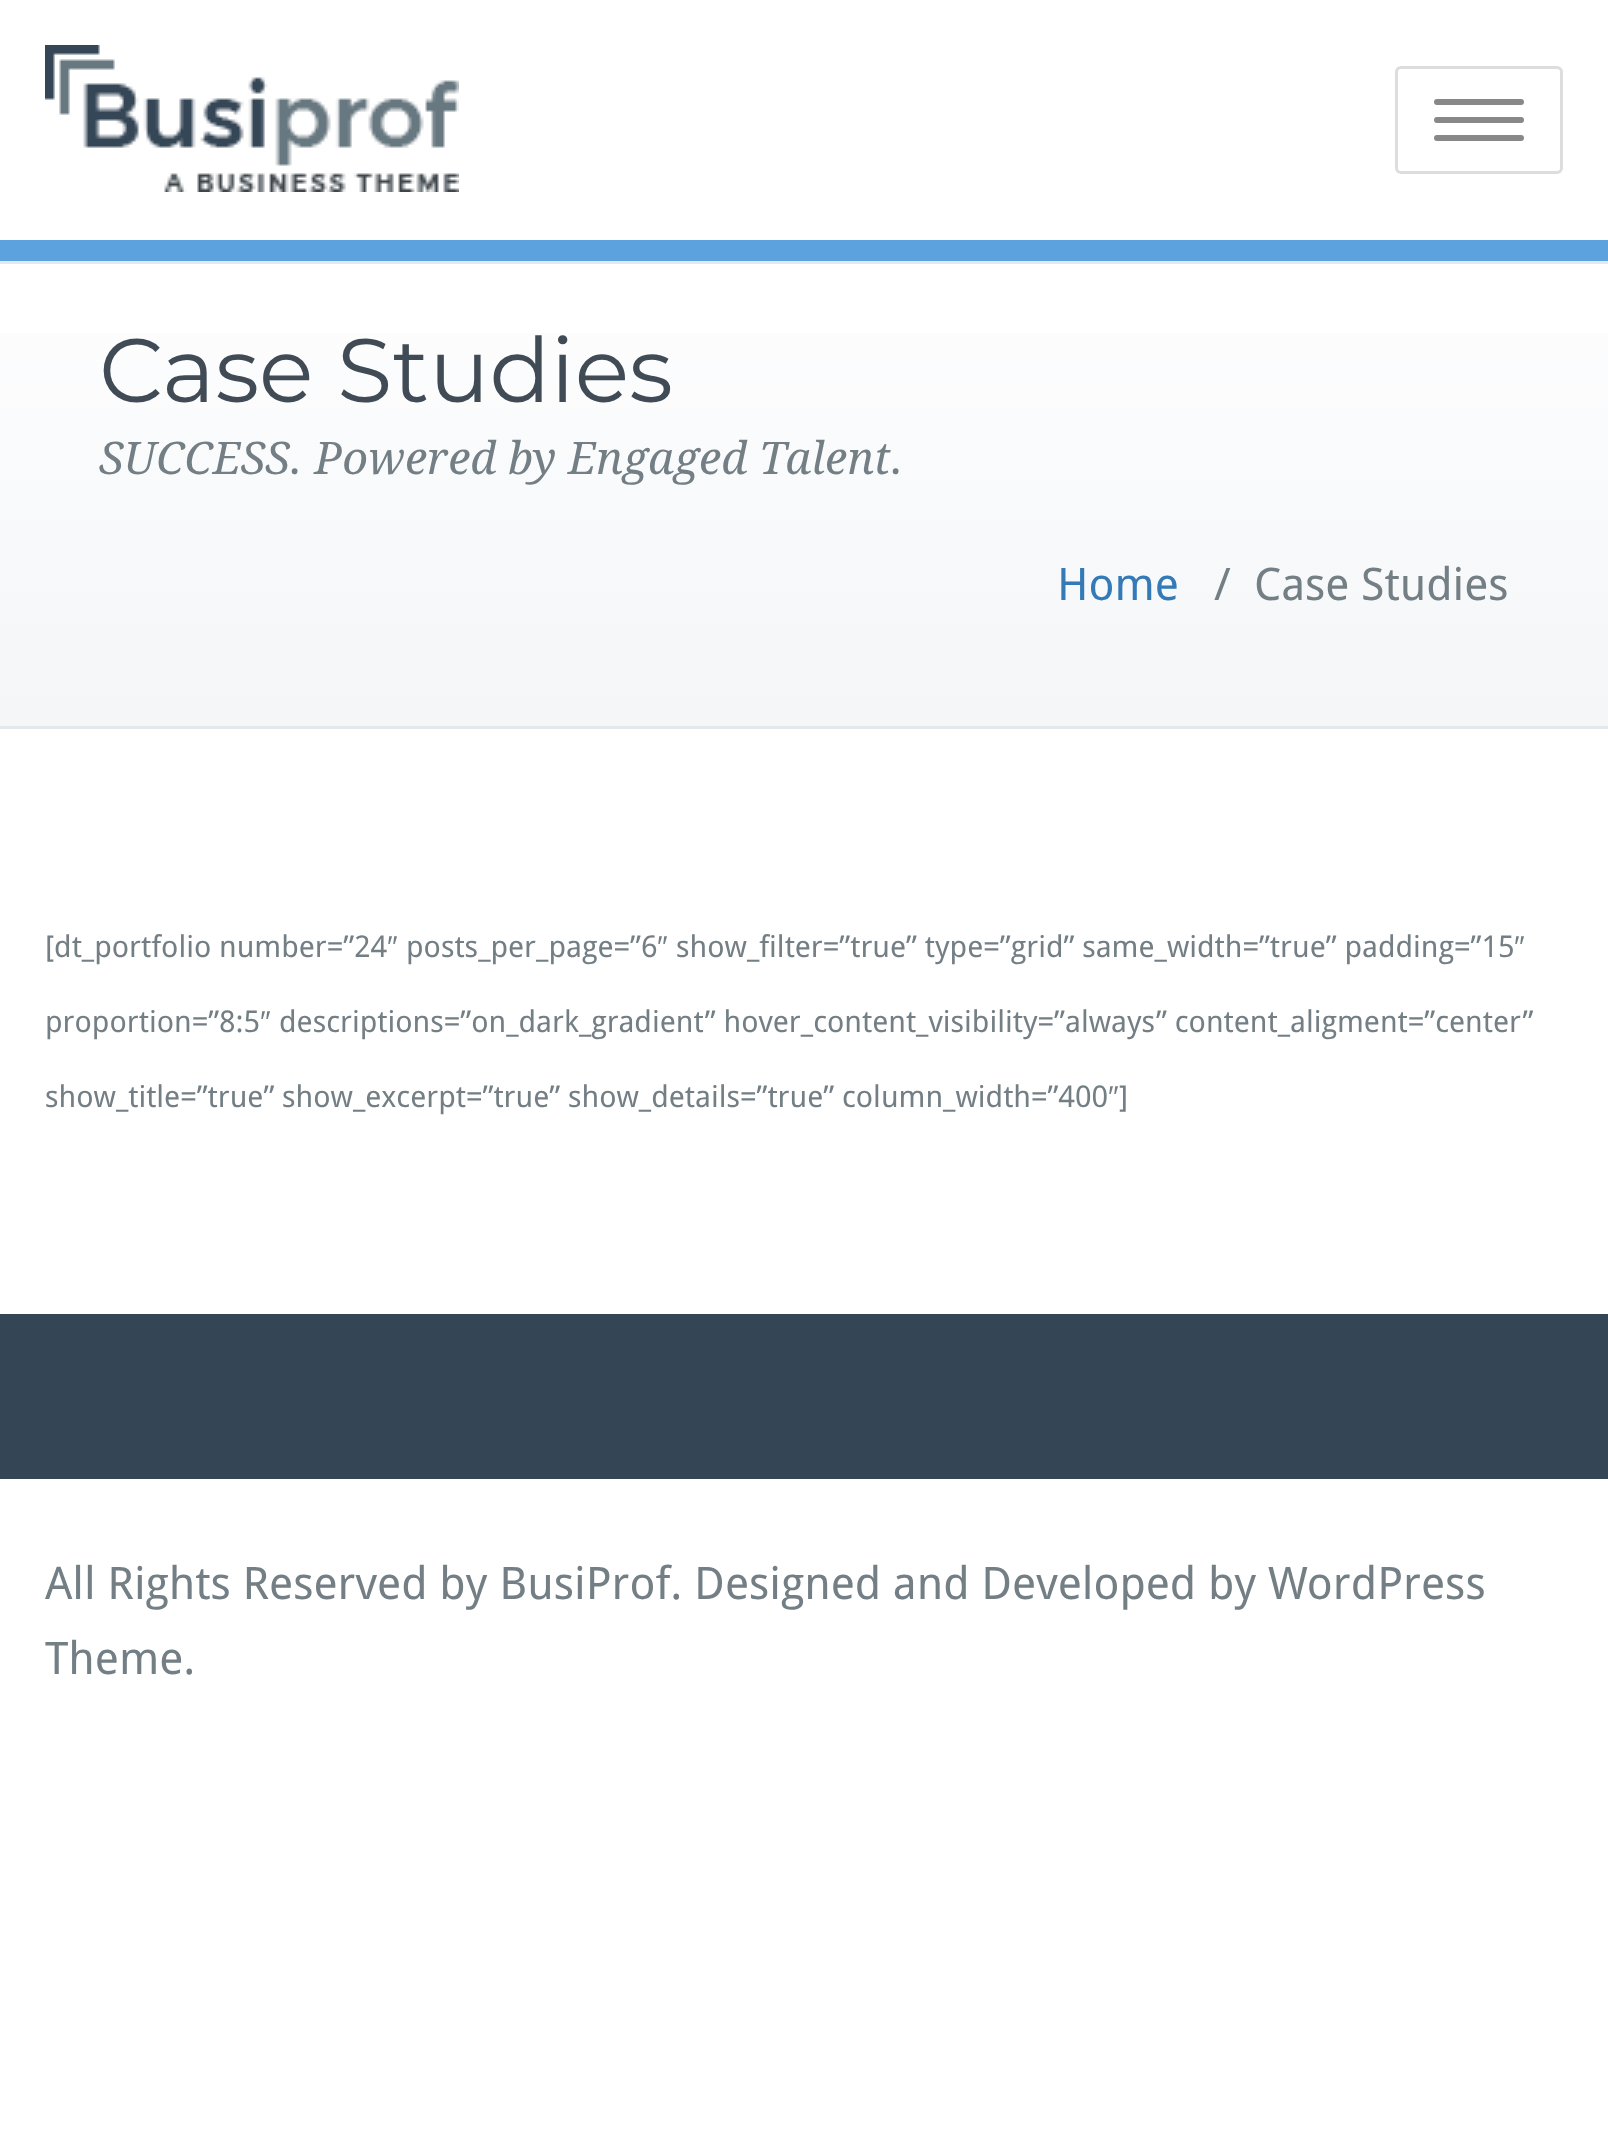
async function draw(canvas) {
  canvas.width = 1608
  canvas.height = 2145
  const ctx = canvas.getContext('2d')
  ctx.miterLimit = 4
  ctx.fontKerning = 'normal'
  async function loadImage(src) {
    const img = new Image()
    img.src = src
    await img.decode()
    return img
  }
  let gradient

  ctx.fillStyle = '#fff'
  ctx.fillRect(0, 0, 1608, 2145)
  ctx.fillStyle = '#5ca2df'
  ctx.fillRect(0, 240, 1608, 21)
  ctx.drawImage(await loadImage('image0.png'), 45, 45, 414, 147)
  ctx.beginPath()
  ctx.roundRect(1396.5, 67.5, 165, 105, 4.5)
  ctx.strokeStyle = '#ddd'
  ctx.lineWidth = 3
  ctx.stroke()
  ctx.fillStyle = '#888'
  ctx.beginPath()
  ctx.roundRect(1434, 99, 90, 6, 3)
  ctx.fill()
  ctx.beginPath()
  ctx.roundRect(1434, 117, 90, 6, 3)
  ctx.fill()
  ctx.beginPath()
  ctx.roundRect(1434, 135, 90, 6, 3)
  ctx.fill()
  gradient = ctx.createLinearGradient(804, 264, 804, 726)
  gradient.addColorStop(0, '#fefeff')
  gradient.addColorStop(1, '#f4f6f7')
  ctx.fillStyle = gradient
  ctx.fillRect(0, 333, 1608, 393)
  ctx.fillStyle = '#e4e8ea'
  ctx.fillRect(0, 261, 1608, 3)
  ctx.fillRect(0, 726, 1608, 3)
  ctx.font = '90px Montserrat'
  ctx.fillStyle = '#404b56'
  ctx.fillText('Case Studies', 99, 402)
  ctx.font = 'italic 45px Droid Serif'
  ctx.fillStyle = '#737f85'
  ctx.fillText('SUCCESS. Powered by Engaged Talent.', 99, 474)
  ctx.font = '45px Droid Sans'
  ctx.fillStyle = '#337ab7'
  ctx.fillText('Home', 1057, 600)
  ctx.fillStyle = '#737f85'
  ctx.fillText('/', 1214, 600)
  ctx.fillText('Case Studies', 1254, 600)
  ctx.font = '30px Droid Sans'
  ctx.fillText('[dt_portfolio number=”24', 45, 957)
  ctx.font = '30px Liberation Sans'
  ctx.fillText('″', 387, 957)
  ctx.font = '30px Droid Sans'
  ctx.fillText('posts_per_page=”6', 406, 957)
  ctx.font = '30px Liberation Sans'
  ctx.fillText('″', 657, 957)
  ctx.font = '30px Droid Sans'
  ctx.fillText('show_filter=”true” type=”grid” same_width=”true” padding=”15', 676, 957)
  ctx.font = '30px Liberation Sans'
  ctx.fillText('″', 1514, 957)
  ctx.font = '30px Droid Sans'
  ctx.fillText('proportion=”8:5', 45, 1032)
  ctx.font = '30px Liberation Sans'
  ctx.fillText('″', 260, 1032)
  ctx.font = '30px Droid Sans'
  ctx.fillText('descriptions=”on_dark_gradient” hover_content_visibility=”always” content_aligment=”center”', 279, 1032)
  ctx.fillText('show_title=”true” show_excerpt=”true” show_details=”true” column_width=”400', 45, 1107)
  ctx.font = '30px Liberation Sans'
  ctx.fillText('″', 1108, 1107)
  ctx.font = '30px Droid Sans'
  ctx.fillText(']', 1119, 1107)
  ctx.fillStyle = '#344656'
  ctx.fillRect(0, 1314, 1608, 165)
  ctx.font = '45px Droid Sans'
  ctx.fillStyle = '#737f85'
  ctx.fillText('All Rights Reserved by BusiProf. Designed and Developed by WordPress', 45, 1599)
  ctx.fillText('Theme.', 45, 1674)
}

draw(document.querySelector('canvas'))
